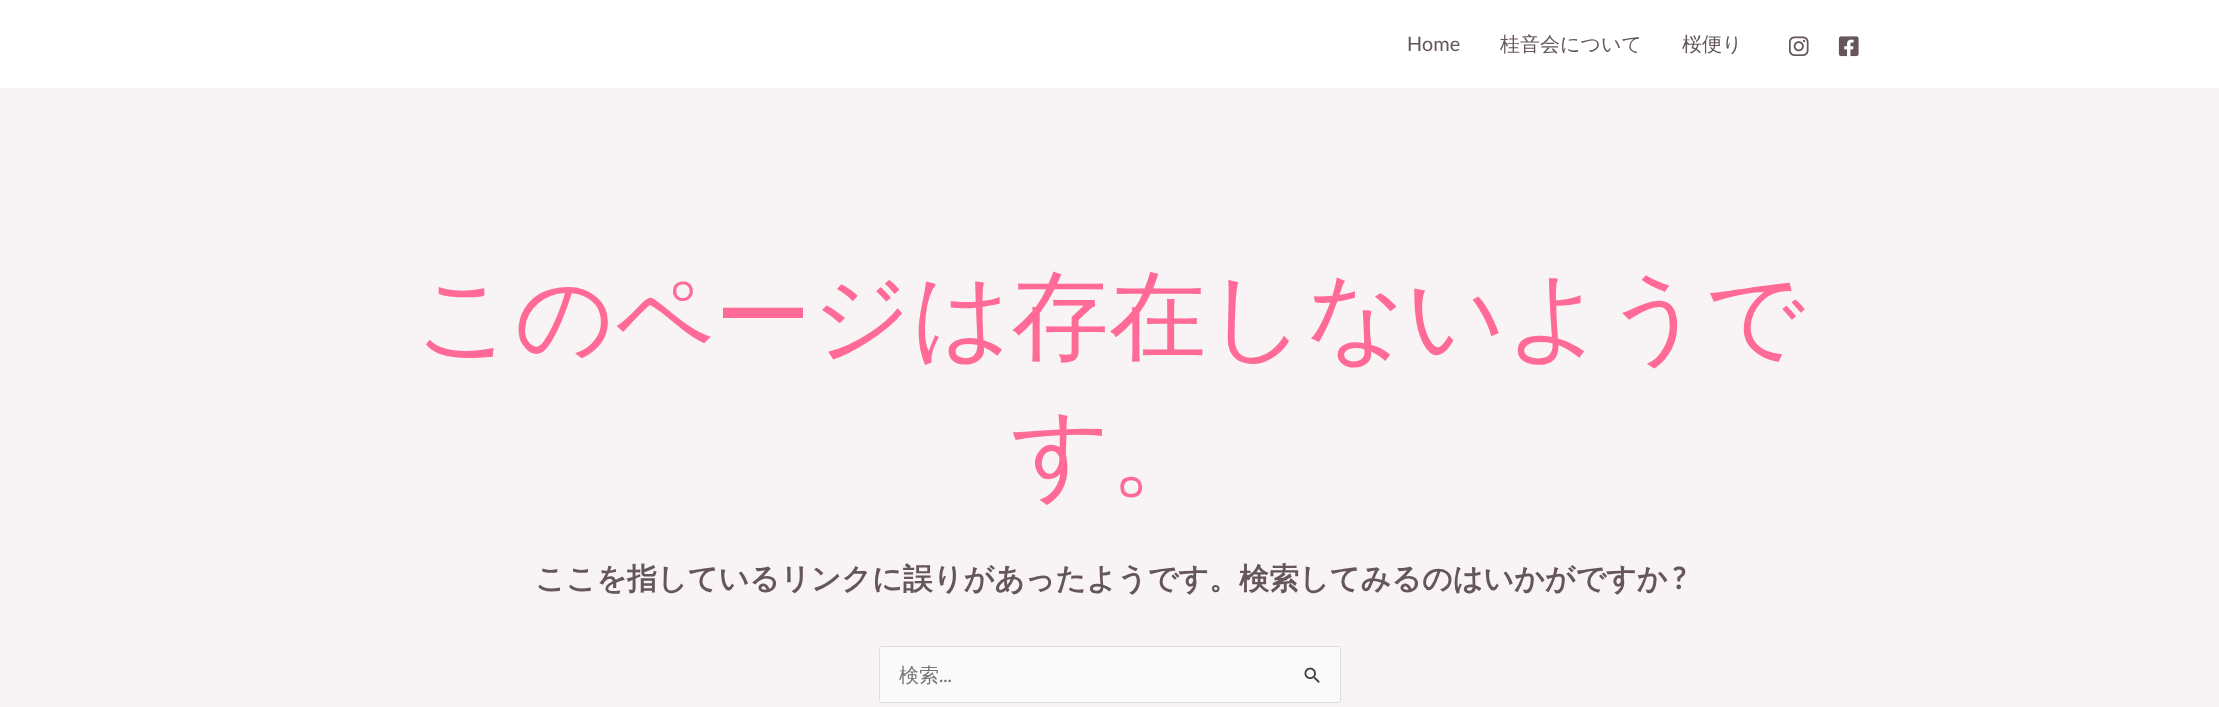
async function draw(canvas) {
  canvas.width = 2219
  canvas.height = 707
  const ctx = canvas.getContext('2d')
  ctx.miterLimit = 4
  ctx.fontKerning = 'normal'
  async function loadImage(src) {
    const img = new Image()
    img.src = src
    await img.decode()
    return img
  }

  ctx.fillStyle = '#f8f3f5'
  ctx.fillRect(0, 0, 2219, 707)
  ctx.fillStyle = '#fff'
  ctx.fillRect(0, 0, 2219, 88)
  ctx.font = '20px Lato'
  ctx.fillStyle = '#645659'
  ctx.fillText('Home', 1407, 51)
  ctx.font = '500 20px WenQuanYi Zen Hei'
  ctx.fillText('桂音会について', 1500, 51)
  ctx.fillText('桜便り', 1682, 51)
  ctx.drawImage(await loadImage('image0.png'), 1788, 36, 21, 20)
  ctx.drawImage(await loadImage('image1.png'), 1838, 36, 21, 21)
  ctx.font = '500 97.5px WenQuanYi Zen Hei'
  ctx.fillStyle = '#ff6a97'
  ctx.fillText('このページは存在しないようで', 415, 350)
  ctx.fillText('す。', 1011, 487)
  ctx.font = 'bold 30px WenQuanYi Zen Hei'
  ctx.fillStyle = '#645659'
  ctx.fillText('ここを指しているリンクに誤りがあったようです。検索してみるのはいかがですか', 535, 589)
  ctx.font = 'bold 30px Lato'
  ctx.fillText('?', 1673, 589)
  ctx.fillStyle = '#fafafa'
  ctx.beginPath()
  ctx.roundRect(879.5, 646.5, 461, 56, 2)
  ctx.fill()
  ctx.strokeStyle = '#ddd'
  ctx.stroke()
  ctx.font = '500 20px WenQuanYi Zen Hei'
  ctx.fillStyle = '#757575'
  ctx.fillText('検索', 899, 682)
  ctx.font = '20px Lato'
  ctx.fillText('...', 939, 682)
  ctx.drawImage(await loadImage('image2.png'), 1304, 667, 16, 16)
}

draw(document.querySelector('canvas'))
